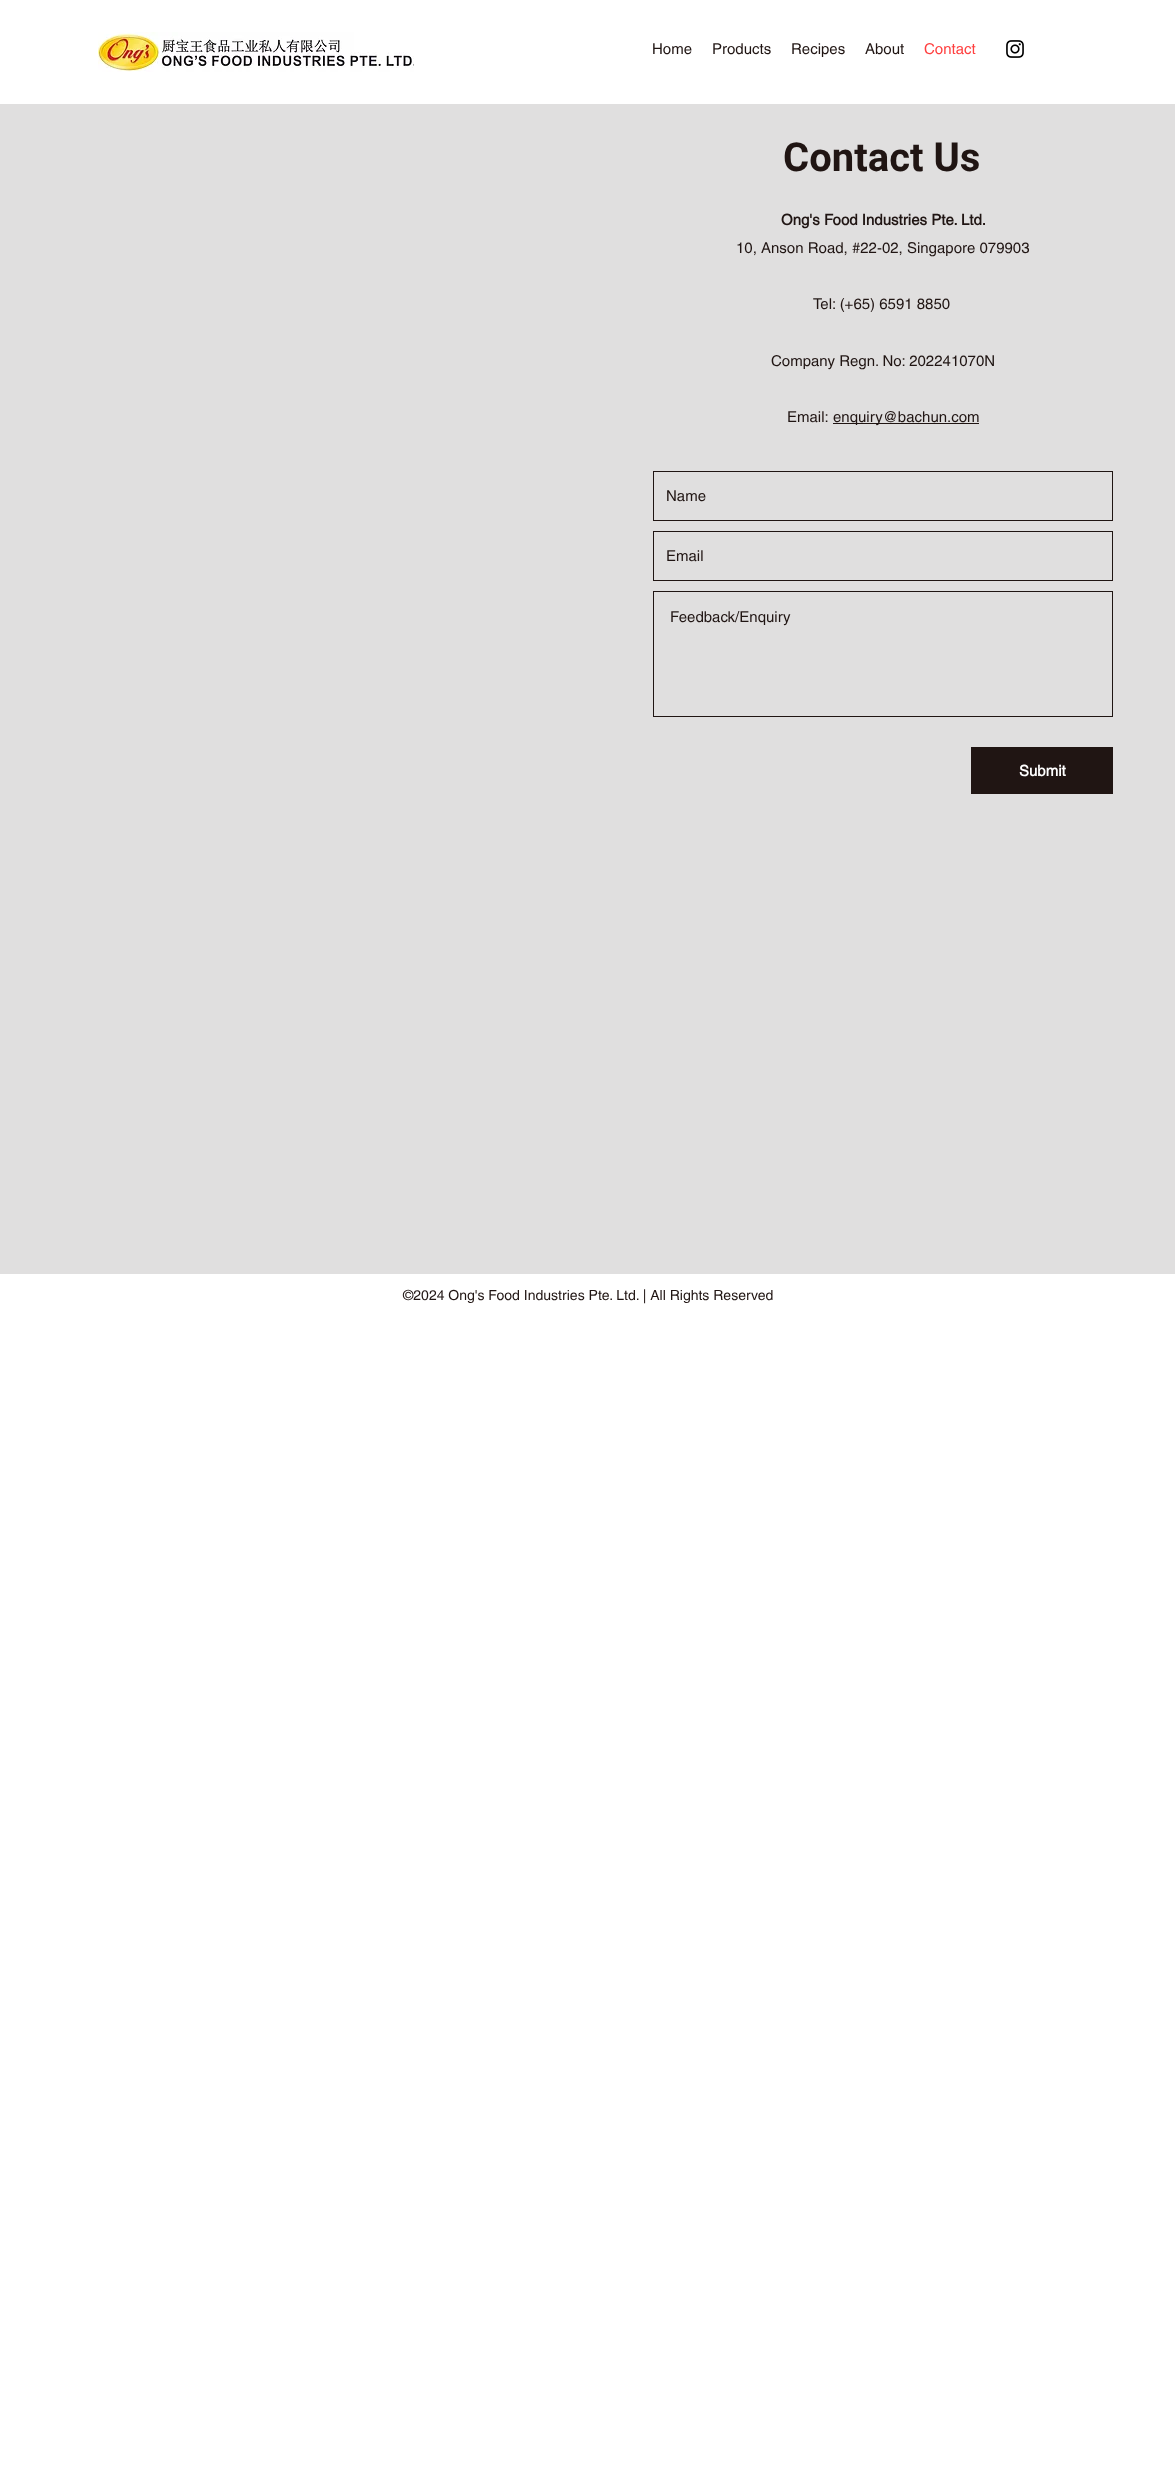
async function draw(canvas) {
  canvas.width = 1175
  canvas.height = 2480
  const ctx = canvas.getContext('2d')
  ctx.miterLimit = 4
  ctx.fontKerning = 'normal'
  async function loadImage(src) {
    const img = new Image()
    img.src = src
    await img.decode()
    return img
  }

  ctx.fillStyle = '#fff'
  ctx.fillRect(0, 0, 1175, 2480)
  ctx.drawImage(await loadImage('image0.png'), 98, 32, 316, 40)
  ctx.font = '15px helvetica'
  ctx.fillStyle = '#201513'
  ctx.fillText('Home', 652, 54)
  ctx.fillText('Products', 712, 54)
  ctx.fillText('Recipes', 791, 54)
  ctx.fillText('About', 865, 54)
  ctx.fillStyle = '#ff4040'
  ctx.fillText('Contact', 924, 54)
  ctx.drawImage(await loadImage('image1.png'), 1006, 40, 18, 18)
  ctx.fillStyle = '#e0dfdf'
  ctx.fillRect(0, 104, 1175, 1170)
  ctx.font = 'bold 40px Roboto'
  ctx.fillStyle = '#201513'
  ctx.fillText('Contact Us', 783, 171)
  ctx.font = 'bold 15px helvetica'
  ctx.fillText('Ong\'s Food Industries Pte. Ltd.', 781, 225)
  ctx.font = '15px helvetica'
  ctx.fillText('10, Anson Road, #22-02, Singapore 079903', 736, 253)
  ctx.fillText('Tel: (+65) 6591 8850', 813, 309)
  ctx.fillText('Company Regn. No: 202241070N', 771, 366)
  ctx.fillText('Email:', 787, 422)
  ctx.fillRect(833, 423, 146, 1)
  ctx.fillText('enquiry@bachun.com', 833, 422)
  ctx.strokeStyle = '#201513'
  ctx.strokeRect(653.5, 471.5, 459, 49)
  ctx.fillText('Name', 666, 501)
  ctx.strokeRect(653.5, 531.5, 459, 49)
  ctx.fillText('Email', 666, 561)
  ctx.strokeRect(653.5, 591.5, 459, 125)
  ctx.fillText('Feedback/Enquiry', 670, 622)
  ctx.fillRect(971, 747, 142, 47)
  ctx.font = 'bold 15px helvetica'
  ctx.fillStyle = '#fff'
  ctx.fillText('Submit', 1019, 776)
  ctx.font = '14px helvetica'
  ctx.fillStyle = '#201513'
  ctx.fillText('©2024 Ong\'s Food Industries Pte. Ltd. | All Rights Reserved', 403, 1300)
}

draw(document.querySelector('canvas'))
